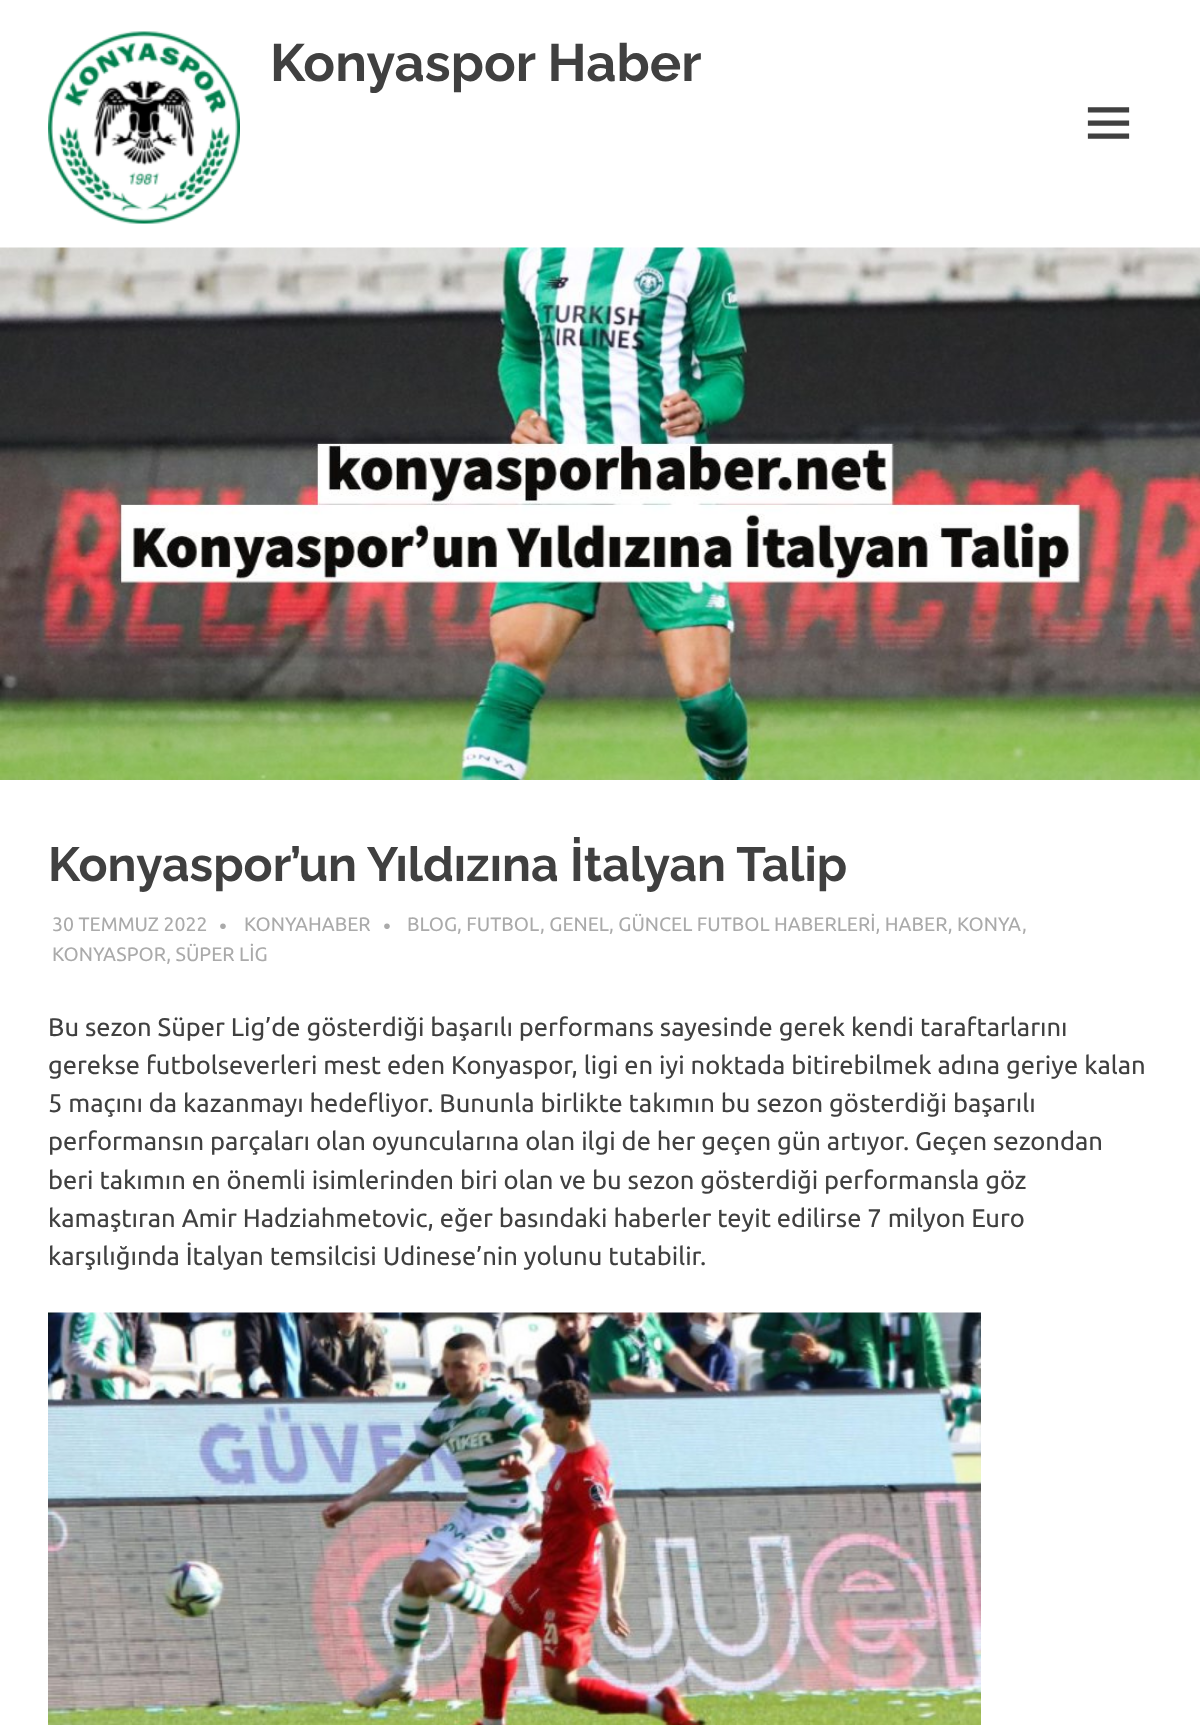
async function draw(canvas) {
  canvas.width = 1200
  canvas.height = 1725
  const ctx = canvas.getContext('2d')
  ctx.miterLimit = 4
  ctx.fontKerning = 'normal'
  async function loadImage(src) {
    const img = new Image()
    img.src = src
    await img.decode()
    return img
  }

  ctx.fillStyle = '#fff'
  ctx.fillRect(0, 0, 1200, 1725)
  ctx.drawImage(await loadImage('image0.png'), 48, 31, 192, 193)
  ctx.font = 'bold 52.5px Raleway'
  ctx.fillStyle = '#404040'
  ctx.fillText('Konyaspor Haber', 270, 81)
  ctx.drawImage(await loadImage('image1.png'), 1087, 107, 43, 32)
  ctx.drawImage(await loadImage('image2.png'), 0, 247, 1200, 533)
  ctx.font = 'bold 48px Raleway'
  ctx.fillText('Konyaspor’un Yıldızına İtalyan Talip', 48, 881)
  ctx.font = '19.5px Ubuntu'
  ctx.fillStyle = '#aaa'
  ctx.fillText('30 TEMMUZ 2022', 52, 931)
  ctx.font = '22px Ubuntu'
  ctx.fillText('•', 219, 934)
  ctx.font = '19.5px Ubuntu'
  ctx.fillText('KONYAHABER', 244, 931)
  ctx.font = '22px Ubuntu'
  ctx.fillText('•', 383, 934)
  ctx.font = '19.5px Ubuntu'
  ctx.fillText('BLOG, FUTBOL', 407, 931)
  ctx.fillText(', GENEL', 540, 931)
  ctx.fillText(', GÜNCEL FUTBOL HABERLERİ, HABER, KONYA', 609, 931)
  ctx.fillText(',', 1022, 931)
  ctx.fillText('KONYASPOR, SÜPER LİG', 52, 961)
  ctx.font = '25.5px Ubuntu'
  ctx.fillStyle = '#404040'
  ctx.fillText('Bu sezon Süper Lig’de gösterdiği başarılı performans sayesinde gerek kendi taraftarlarını', 48, 1036)
  ctx.fillText('gerekse futbolseverleri mest eden Konyaspor, ligi en iyi noktada bitirebilmek adına geriye kalan', 48, 1074)
  ctx.fillText('5 maçını da kazanmayı hedefliyor. Bununla birlikte takımın bu sezon gösterdiği başarılı', 48, 1112)
  ctx.fillText('performansın parçaları olan oyuncularına olan ilgi de her geçen gün artıyor. Geçen sezondan', 48, 1150)
  ctx.fillText('beri takımın en önemli isimlerinden biri olan ve bu sezon gösterdiği performansla göz', 48, 1189)
  ctx.fillText('kamaştıran Amir Hadziahmetovic, eğer basındaki haberler teyit edilirse 7 milyon Euro', 48, 1227)
  ctx.fillText('karşılığında İtalyan temsilcisi Udinese’nin yolunu tutabilir.', 48, 1265)
  ctx.drawImage(await loadImage('image3.png'), 48, 1312, 933, 413)
}

draw(document.querySelector('canvas'))
